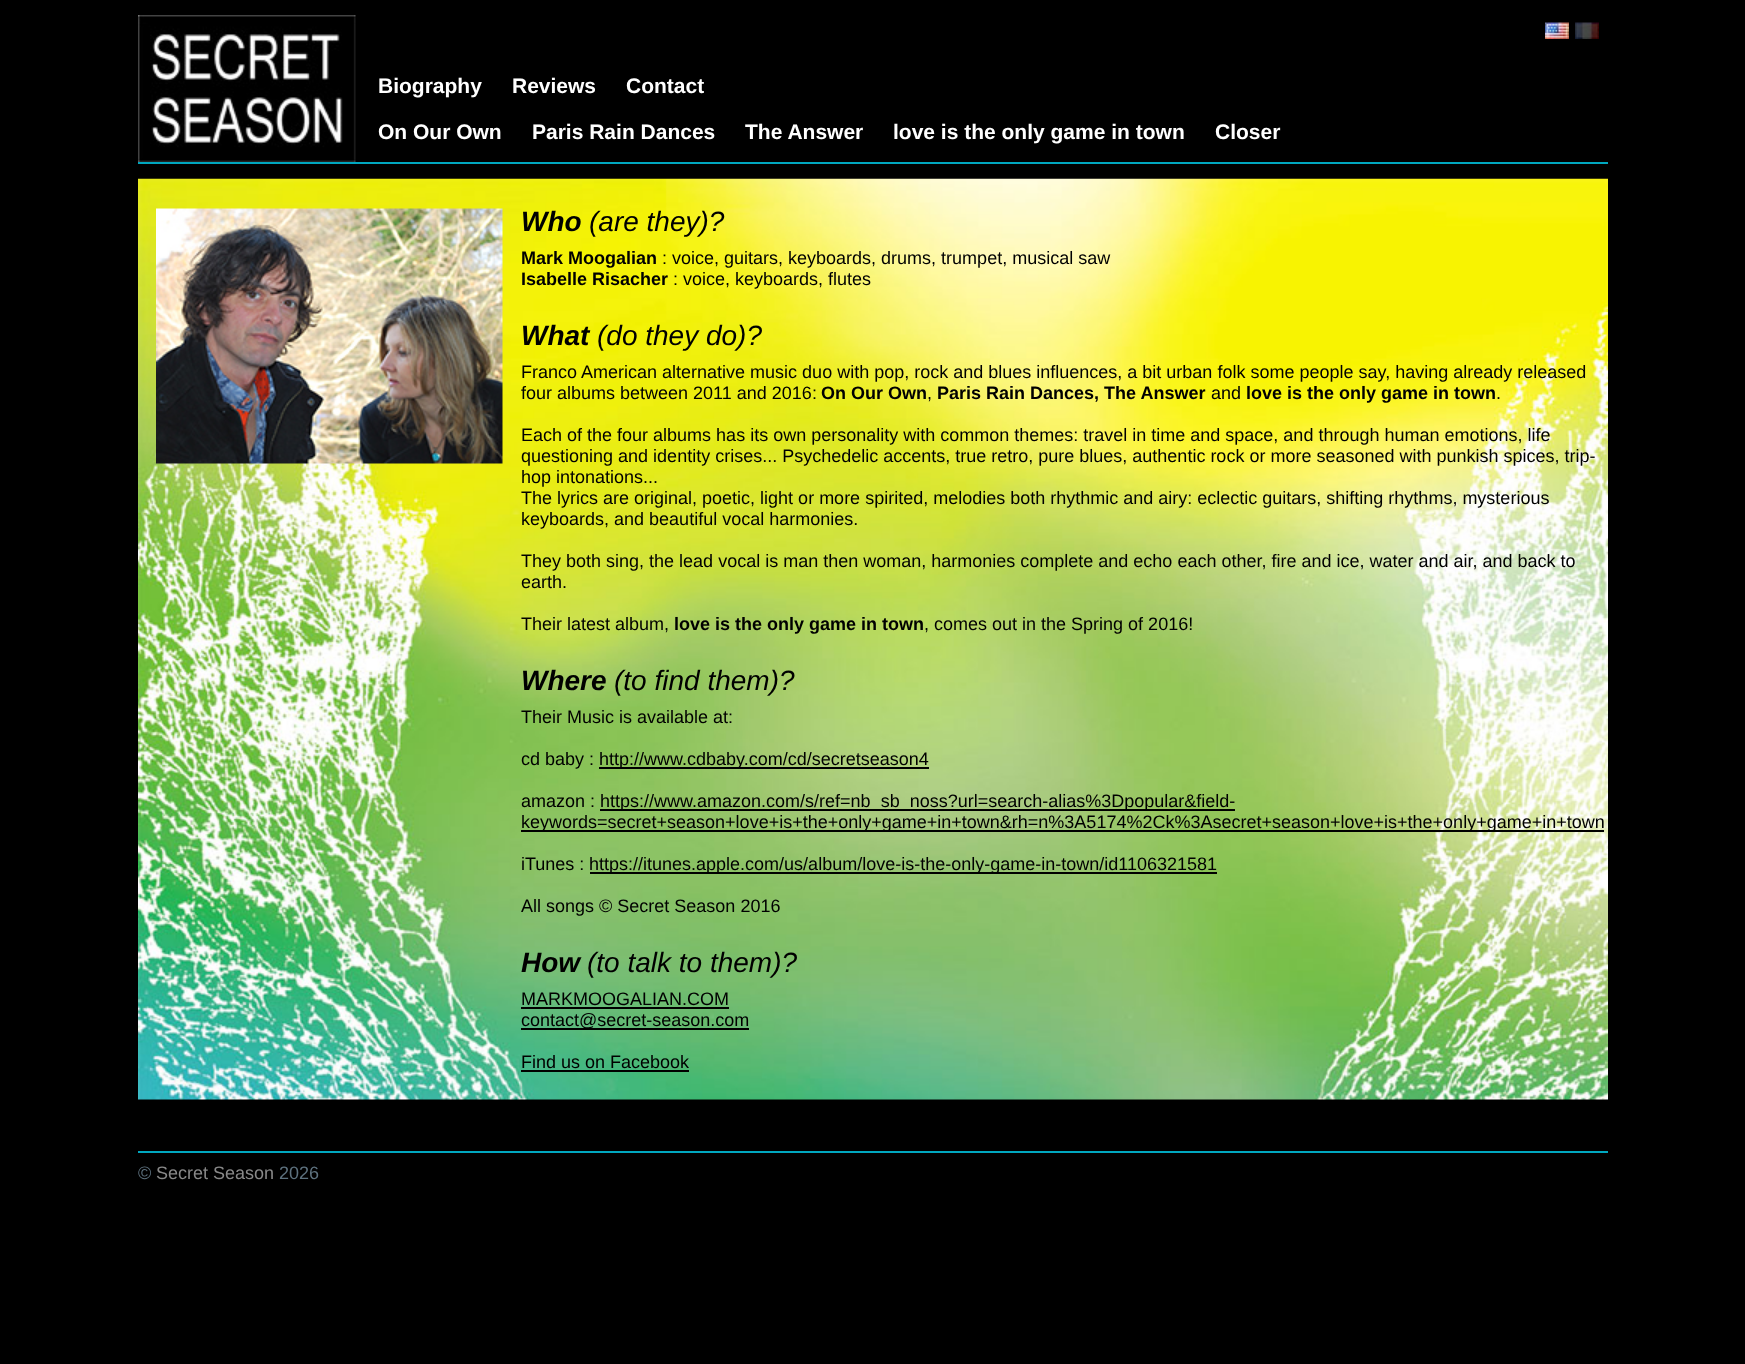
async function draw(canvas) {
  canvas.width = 1745
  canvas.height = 1364
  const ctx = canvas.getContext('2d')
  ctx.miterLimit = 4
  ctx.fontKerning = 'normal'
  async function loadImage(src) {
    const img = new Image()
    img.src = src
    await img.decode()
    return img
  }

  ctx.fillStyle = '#000'
  ctx.fillRect(0, 0, 1745, 1364)
  ctx.fillStyle = '#00a7bf'
  ctx.fillRect(138, 162, 1470, 2)
  ctx.drawImage(await loadImage('image0.png'), 138, 15, 218, 147)
  ctx.drawImage(await loadImage('image1.png'), 1545, 22, 24, 17)
  ctx.drawImage(await loadImage('image2.png'), 1575, 22, 24, 17)
  ctx.font = 'bold 21px Liberation Sans'
  ctx.fillStyle = '#fff'
  ctx.fillText('Biography', 378, 93)
  ctx.fillText('Reviews', 512, 93)
  ctx.fillText('Contact', 626, 93)
  ctx.fillText('On Our Own', 378, 139)
  ctx.fillText('Paris Rain Dances', 532, 139)
  ctx.fillText('The Answer', 745, 139)
  ctx.fillText('love is the only game in town', 893, 139)
  ctx.fillText('Closer', 1215, 139)
  ctx.drawImage(await loadImage('image3.png'), 138, 178, 1470, 922)
  ctx.drawImage(await loadImage('image4.png'), 156, 208, 347, 256)
  ctx.font = 'italic bold 28px Liberation Sans'
  ctx.fillStyle = '#000'
  ctx.fillText('Who', 521, 231)
  ctx.font = 'italic 28px Liberation Sans'
  ctx.fillText('(are they)?', 589, 231)
  ctx.font = 'bold 18px Liberation Sans'
  ctx.fillText('Mark Moogalian', 521, 264)
  ctx.font = '18px Liberation Sans'
  ctx.fillText(': voice, guitars, keyboards, drums, trumpet, musical saw', 662, 264)
  ctx.font = 'bold 18px Liberation Sans'
  ctx.fillText('Isabelle Risacher', 521, 285)
  ctx.font = '18px Liberation Sans'
  ctx.fillText(': voice, keyboards, flutes', 673, 285)
  ctx.font = 'italic bold 28px Liberation Sans'
  ctx.fillText('What', 521, 345)
  ctx.font = 'italic 28px Liberation Sans'
  ctx.fillText('(do they do)?', 597, 345)
  ctx.font = '18px Liberation Sans'
  ctx.fillText('Franco American alternative music duo with pop, rock and blues influences, a bit urban folk some people say, having already released', 521, 378)
  ctx.fillText('four albums between 2011 and 2016:', 521, 399)
  ctx.font = 'bold 18px Liberation Sans'
  ctx.fillText('On Our Own', 821, 399)
  ctx.font = '18px Liberation Sans'
  ctx.fillText(',', 927, 399)
  ctx.font = 'bold 18px Liberation Sans'
  ctx.fillText('Paris Rain Dances, The Answer', 937, 399)
  ctx.font = '18px Liberation Sans'
  ctx.fillText('and', 1211, 399)
  ctx.font = 'bold 18px Liberation Sans'
  ctx.fillText('love is the only game in town', 1246, 399)
  ctx.font = '18px Liberation Sans'
  ctx.fillText('.', 1496, 399)
  ctx.fillText('Each of the four albums has its own personality with common themes: travel in time and space, and through human emotions, life', 521, 441)
  ctx.fillText('questioning and identity crises... Psychedelic accents, true retro, pure blues, authentic rock or more seasoned with punkish spices, trip-', 521, 462)
  ctx.fillText('hop intonations...', 521, 483)
  ctx.fillText('The lyrics are original, poetic, light or more spirited, melodies both rhythmic and airy: eclectic guitars, shifting rhythms, mysterious', 521, 504)
  ctx.fillText('keyboards, and beautiful vocal harmonies.', 521, 525)
  ctx.fillText('They both sing, the lead vocal is man then woman, harmonies complete and echo each other, fire and ice, water and air, and back to', 521, 567)
  ctx.fillText('earth.', 521, 588)
  ctx.fillText('Their latest album,', 521, 630)
  ctx.font = 'bold 18px Liberation Sans'
  ctx.fillText('love is the only game in town', 674, 630)
  ctx.font = '18px Liberation Sans'
  ctx.fillText(', comes out in the Spring of 2016!', 924, 630)
  ctx.font = 'italic bold 28px Liberation Sans'
  ctx.fillText('Where', 521, 690)
  ctx.font = 'italic 28px Liberation Sans'
  ctx.fillText('(to find them)?', 614, 690)
  ctx.font = '18px Liberation Sans'
  ctx.fillText('Their Music is available at:', 521, 723)
  ctx.fillText('cd baby :', 521, 765)
  ctx.fillRect(599, 767, 330, 2)
  ctx.fillText('http://www.cdbaby.com/cd/secretseason4', 599, 765)
  ctx.fillText('amazon :', 521, 807)
  ctx.fillRect(600, 809, 635, 2)
  ctx.fillText('https://www.amazon.com/s/ref=nb_sb_noss?url=search-alias%3Dpopular&field-', 600, 807)
  ctx.fillRect(521, 830, 1083, 2)
  ctx.fillText('keywords=secret+season+love+is+the+only+game+in+town&rh=n%3A5174%2Ck%3Asecret+season+love+is+the+only+game+in+town', 521, 828)
  ctx.fillText('iTunes :', 521, 870)
  ctx.fillRect(590, 872, 627, 2)
  ctx.fillText('https://itunes.apple.com/us/album/love-is-the-only-game-in-town/id1106321581', 589, 870)
  ctx.fillText('All songs © Secret Season 2016', 521, 912)
  ctx.font = 'italic bold 28px Liberation Sans'
  ctx.fillText('How', 521, 972)
  ctx.font = 'italic 28px Liberation Sans'
  ctx.fillText('(to talk to them)?', 587, 972)
  ctx.font = '18px Liberation Sans'
  ctx.fillText('MARKMOOGALIAN.COM', 521, 1005)
  ctx.fillRect(521, 1007, 208, 2)
  ctx.fillRect(521, 1028, 228, 2)
  ctx.fillText('contact@secret-season.com', 521, 1026)
  ctx.fillText('Find us on Facebook', 521, 1068)
  ctx.fillRect(521, 1070, 168, 2)
  ctx.fillStyle = '#00a7bf'
  ctx.fillRect(138, 1151, 1470, 2)
  ctx.fillStyle = '#5d717e'
  ctx.fillText('©', 138, 1179)
  ctx.fillStyle = '#888'
  ctx.fillText('Secret Season', 156, 1179)
  ctx.fillStyle = '#5d717e'
  ctx.fillText('2026', 279, 1179)
}

draw(document.querySelector('canvas'))
